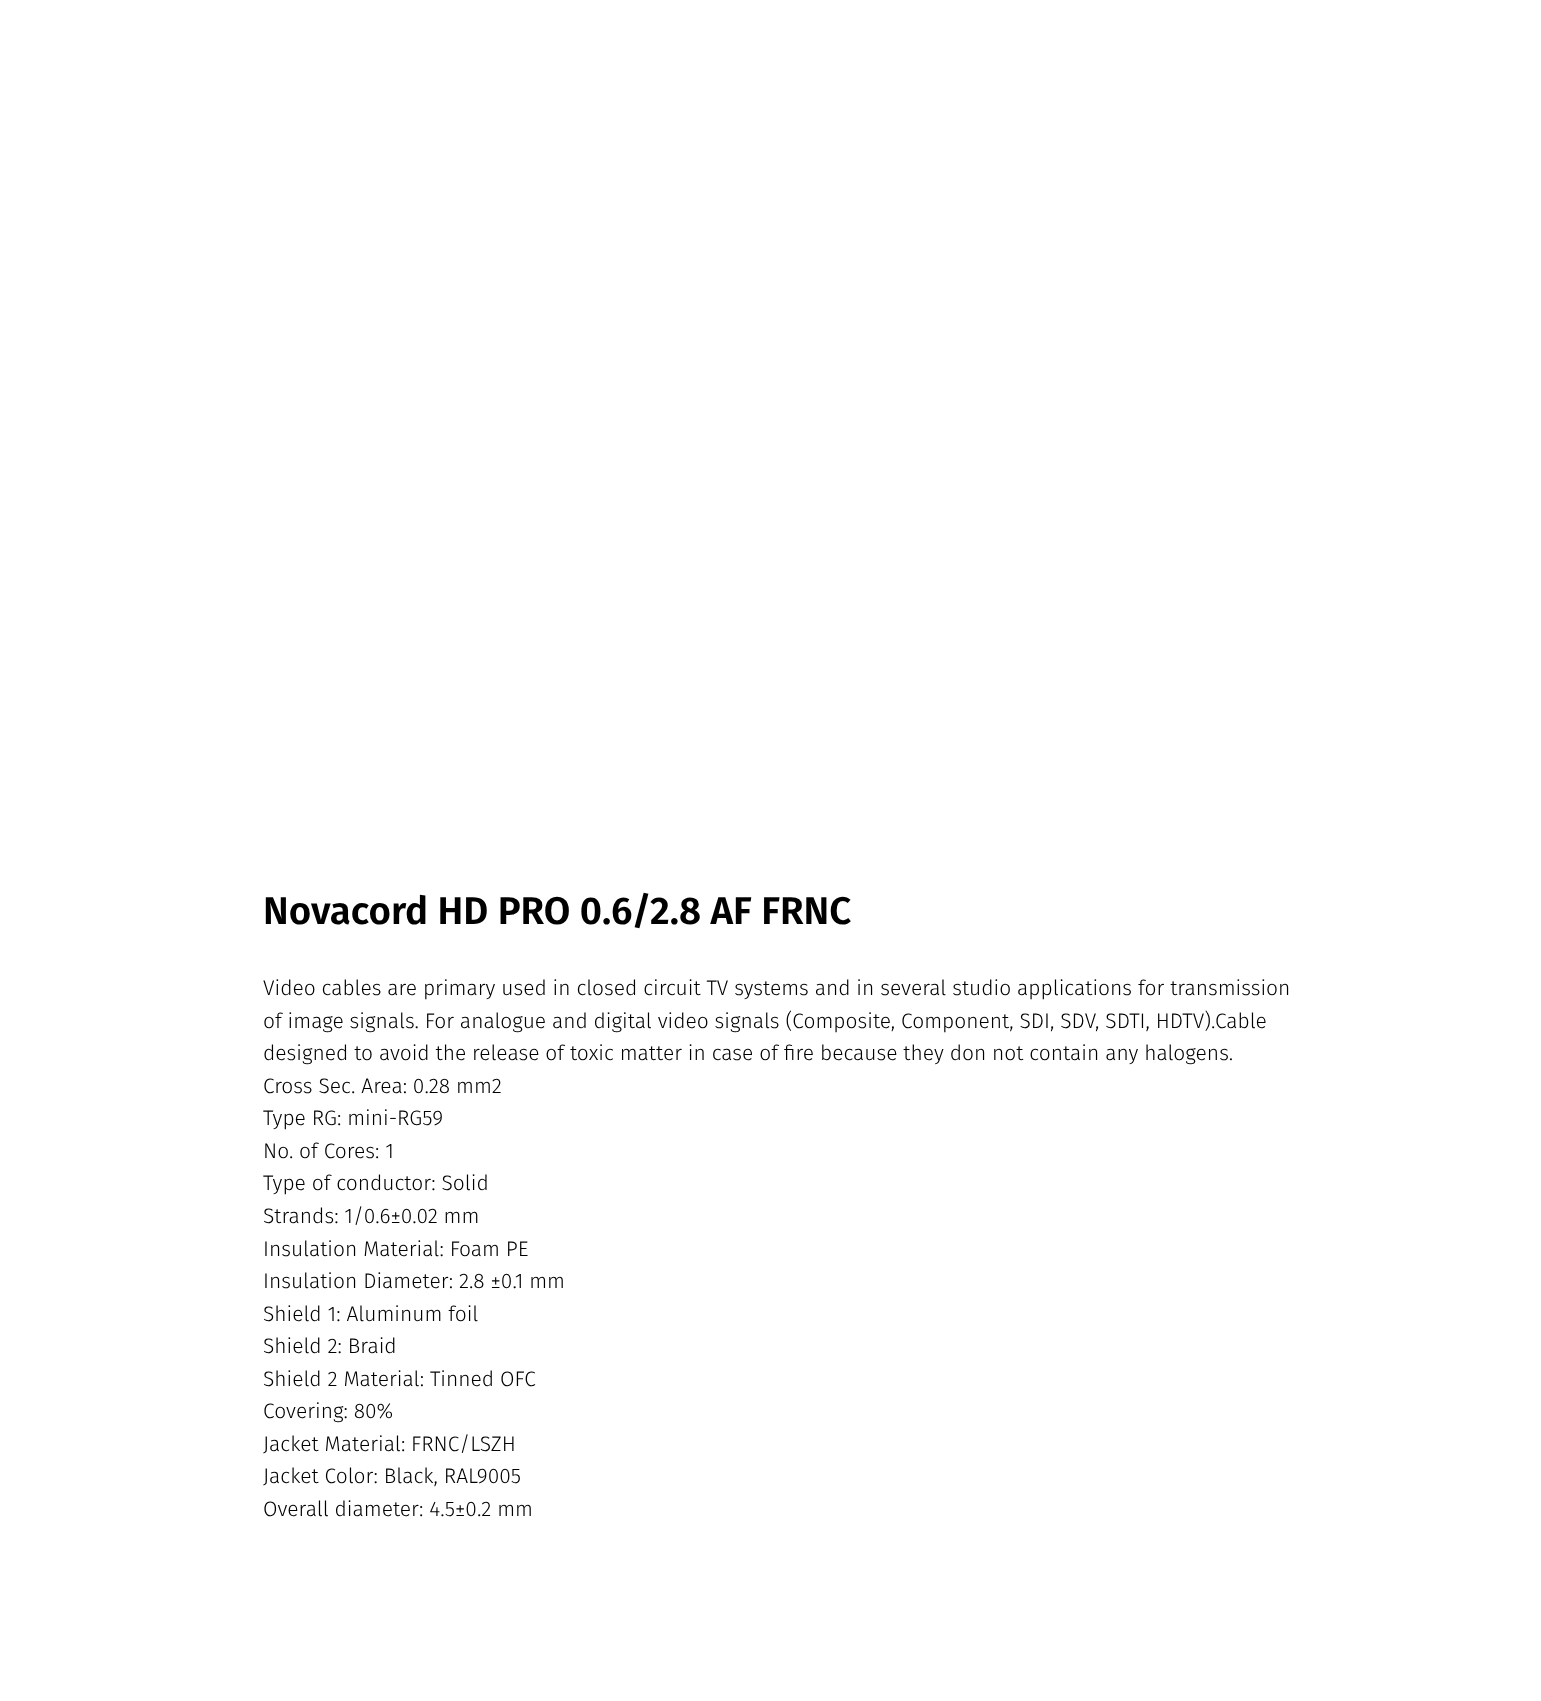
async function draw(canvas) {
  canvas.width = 1541
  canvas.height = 1701
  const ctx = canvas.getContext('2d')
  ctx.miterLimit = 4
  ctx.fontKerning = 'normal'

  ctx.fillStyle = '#fff'
  ctx.fillRect(0, 0, 1541, 1701)
  ctx.font = '600 38.5px Fira Sans'
  ctx.fillStyle = '#000'
  ctx.fillText('Novacord HD PRO 0.6/2.8 AF FRNC', 263, 924)
  ctx.font = '300 21px Fira Sans'
  ctx.fillText('Video cables are primary used in closed circuit TV systems and in several studio applications for transmission', 263, 995)
  ctx.fillText('of image signals. For analogue and digital video signals (Composite, Component, SDI, SDV, SDTI, HDTV).Cable', 263, 1028)
  ctx.fillText('designed to avoid the release of toxic matter in case of fire because they don not contain any halogens.', 263, 1060)
  ctx.fillText('Cross Sec. Area: 0.28 mm2', 263, 1093)
  ctx.fillText('Type RG: mini-RG59', 263, 1125)
  ctx.fillText('No. of Cores: 1', 263, 1158)
  ctx.fillText('Type of conductor: Solid', 263, 1190)
  ctx.fillText('Strands: 1/0.6±0.02 mm', 263, 1223)
  ctx.fillText('Insulation Material: Foam PE', 263, 1256)
  ctx.fillText('Insulation Diameter: 2.8 ±0.1 mm', 263, 1288)
  ctx.fillText('Shield 1: Aluminum foil', 263, 1321)
  ctx.fillText('Shield 2: Braid', 263, 1353)
  ctx.fillText('Shield 2 Material: Tinned OFC', 263, 1386)
  ctx.fillText('Covering: 80%', 263, 1418)
  ctx.fillText('Jacket Material: FRNC/LSZH', 263, 1451)
  ctx.fillText('Jacket Color: Black, RAL9005', 263, 1483)
  ctx.fillText('Overall diameter: 4.5±0.2 mm', 263, 1516)
}

draw(document.querySelector('canvas'))
